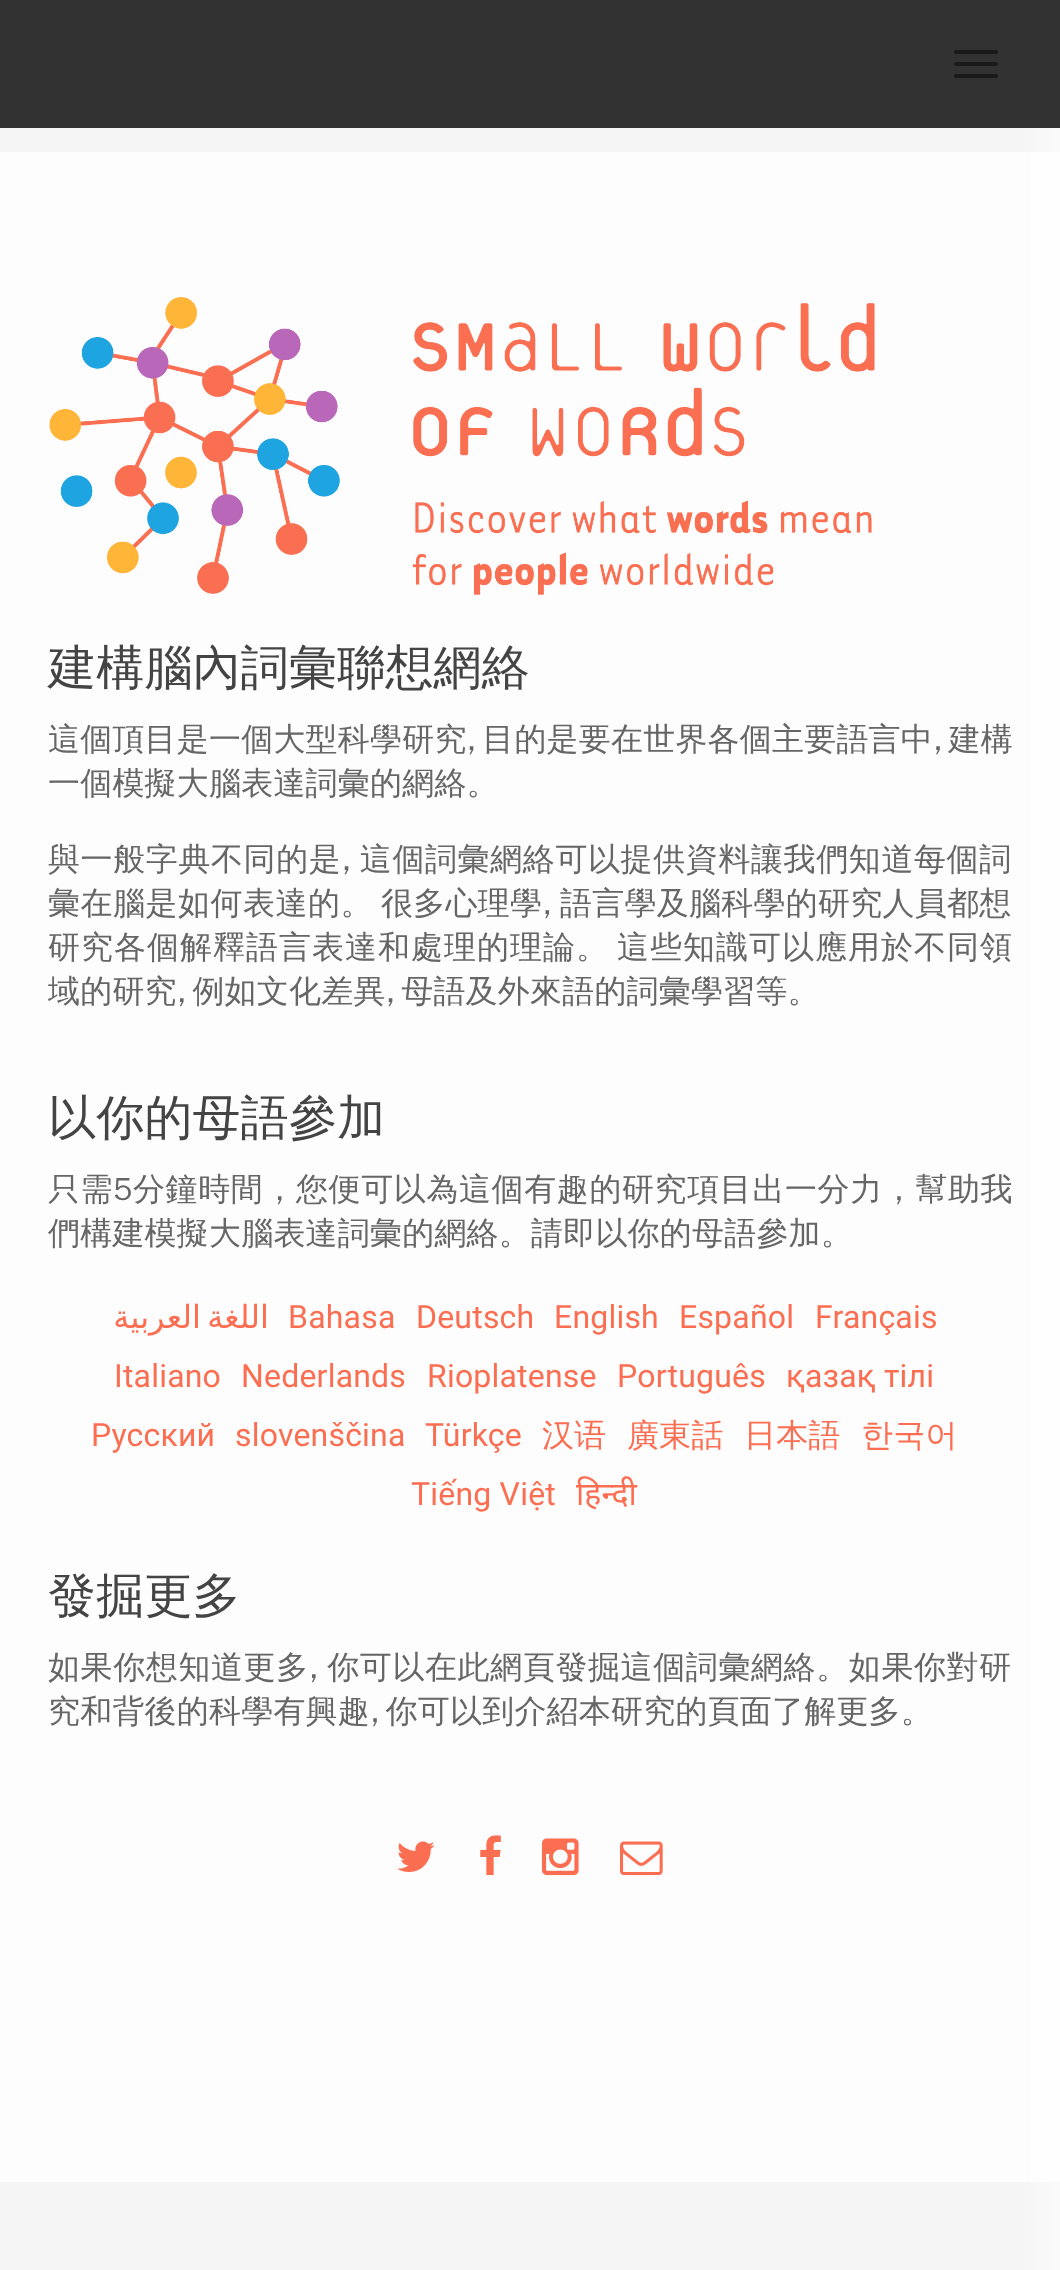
async function draw(canvas) {
  canvas.width = 1060
  canvas.height = 2270
  const ctx = canvas.getContext('2d')
  ctx.miterLimit = 4
  ctx.fontKerning = 'normal'
  async function loadImage(src) {
    const img = new Image()
    img.src = src
    await img.decode()
    return img
  }

  ctx.fillStyle = '#fff'
  ctx.fillRect(0, 0, 1060, 2270)
  ctx.drawImage(await loadImage('image0.png'), 0, 128, 1060, 2142)
  ctx.fillStyle = '#323233'
  ctx.fillRect(0, 0, 1060, 128)
  ctx.fillStyle = '#19191a'
  ctx.beginPath()
  ctx.roundRect(954, 50, 44, 4, 2)
  ctx.fill()
  ctx.beginPath()
  ctx.roundRect(954, 62, 44, 4, 2)
  ctx.fill()
  ctx.beginPath()
  ctx.roundRect(954, 74, 44, 4, 2)
  ctx.fill()
  ctx.fillStyle = '#ffffffcc'
  ctx.fillRect(0, 152, 1060, 2030)
  ctx.drawImage(await loadImage('image1.png'), 49, 297, 826, 298)
  ctx.letterSpacing = '0.2px'
  ctx.font = '500 48px WenQuanYi Zen Hei'
  ctx.fillStyle = '#444'
  ctx.fillText('建構腦內詞彙聯想網絡', 48, 684)
  ctx.wordSpacing = '-4px'
  ctx.font = '500 32px WenQuanYi Zen Hei'
  ctx.fillStyle = '#666'
  ctx.fillText('這個頂目是一個大型科學研究, 目的是要在世界各個主要語言中, 建構', 48, 750)
  ctx.wordSpacing = '0px'
  ctx.fillText('一個模擬大腦表達詞彙的網絡。', 48, 794)
  ctx.letterSpacing = '0.6px'
  ctx.wordSpacing = '-2px'
  ctx.fillText('與一般字典不同的是, 這個詞彙網絡可以提供資料讓我們知道每個詞', 48, 870)
  ctx.letterSpacing = '0.5px'
  ctx.wordSpacing = '0px'
  ctx.fillText('彙在腦是如何表達的。', 48, 914)
  ctx.letterSpacing = '0.25px'
  ctx.wordSpacing = '-2px'
  ctx.fillText('很多心理學, 語言學及腦科學的研究人員都想', 381, 914)
  ctx.letterSpacing = '1px'
  ctx.wordSpacing = '0px'
  ctx.fillText('研究各個解釋語言表達和處理的理論。', 48, 958)
  ctx.fillText('這些知識可以應用於不同領', 617, 958)
  ctx.letterSpacing = '0.2px'
  ctx.wordSpacing = '-4px'
  ctx.fillText('域的研究, 例如文化差異, 母語及外來語的詞彙學習等。', 48, 1002)
  ctx.wordSpacing = '0px'
  ctx.font = '500 48px WenQuanYi Zen Hei'
  ctx.fillStyle = '#444'
  ctx.fillText('以你的母語參加', 48, 1134)
  ctx.letterSpacing = '0.6px'
  ctx.font = '500 32px WenQuanYi Zen Hei'
  ctx.fillStyle = '#666'
  ctx.fillText('只需5分鐘時間，您便可以為這個有趣的研究項目出一分力，幫助我', 48, 1200)
  ctx.letterSpacing = '0.2px'
  ctx.fillText('們構建模擬大腦表達詞彙的網絡。請即以你的母語參加。', 48, 1244)
  ctx.wordSpacing = '-4px'
  ctx.direction = 'rtl'
  ctx.font = '32px DejaVu Sans'
  ctx.fillStyle = '#fc6e51'
  ctx.fillText('اللغة العربية', 269, 1328)
  ctx.wordSpacing = '0px'
  ctx.direction = 'ltr'
  ctx.font = '32px Roboto'
  ctx.fillText('Bahasa', 288, 1328)
  ctx.fillText('Deutsch', 416, 1328)
  ctx.fillText('English', 554, 1328)
  ctx.fillText('Español', 679, 1328)
  ctx.fillText('Français', 815, 1328)
  ctx.fillText('Italiano', 114, 1387)
  ctx.fillText('Nederlands', 241, 1387)
  ctx.fillText('Rioplatense', 427, 1387)
  ctx.fillText('Português', 617, 1387)
  ctx.fillText('қазақ тілі', 786, 1387)
  ctx.fillText('Pусский', 91, 1446)
  ctx.fillText('slovenščina', 235, 1446)
  ctx.fillText('Türkçe', 425, 1446)
  ctx.font = '500 32px WenQuanYi Zen Hei'
  ctx.fillText('汉语', 542, 1446)
  ctx.fillText('廣東話', 627, 1446)
  ctx.fillText('日本語', 744, 1446)
  ctx.fillText('한국어', 861, 1446)
  ctx.font = '32px Roboto'
  ctx.fillText('Tiếng Việt', 411, 1505)
  ctx.font = '32px Noto Sans'
  ctx.fillText('हिन्दी', 576, 1505)
  ctx.font = '500 48px WenQuanYi Zen Hei'
  ctx.fillStyle = '#444'
  ctx.fillText('發掘更多', 48, 1612)
  ctx.letterSpacing = '0.6px'
  ctx.wordSpacing = '-2px'
  ctx.font = '500 32px WenQuanYi Zen Hei'
  ctx.fillStyle = '#666'
  ctx.fillText('如果你想知道更多, 你可以在此網頁發掘這個詞彙網絡。如果你對研', 48, 1678)
  ctx.letterSpacing = '0.2px'
  ctx.wordSpacing = '-4px'
  ctx.fillText('究和背後的科學有興趣, 你可以到介紹本研究的頁面了解更多。', 48, 1722)
  ctx.drawImage(await loadImage('image2.png'), 397, 1841, 38, 31)
  ctx.drawImage(await loadImage('image3.png'), 480, 1835, 21, 41)
  ctx.drawImage(await loadImage('image4.png'), 542, 1838, 37, 38)
  ctx.drawImage(await loadImage('image5.png'), 620, 1841, 43, 35)
}

draw(document.querySelector('canvas'))
